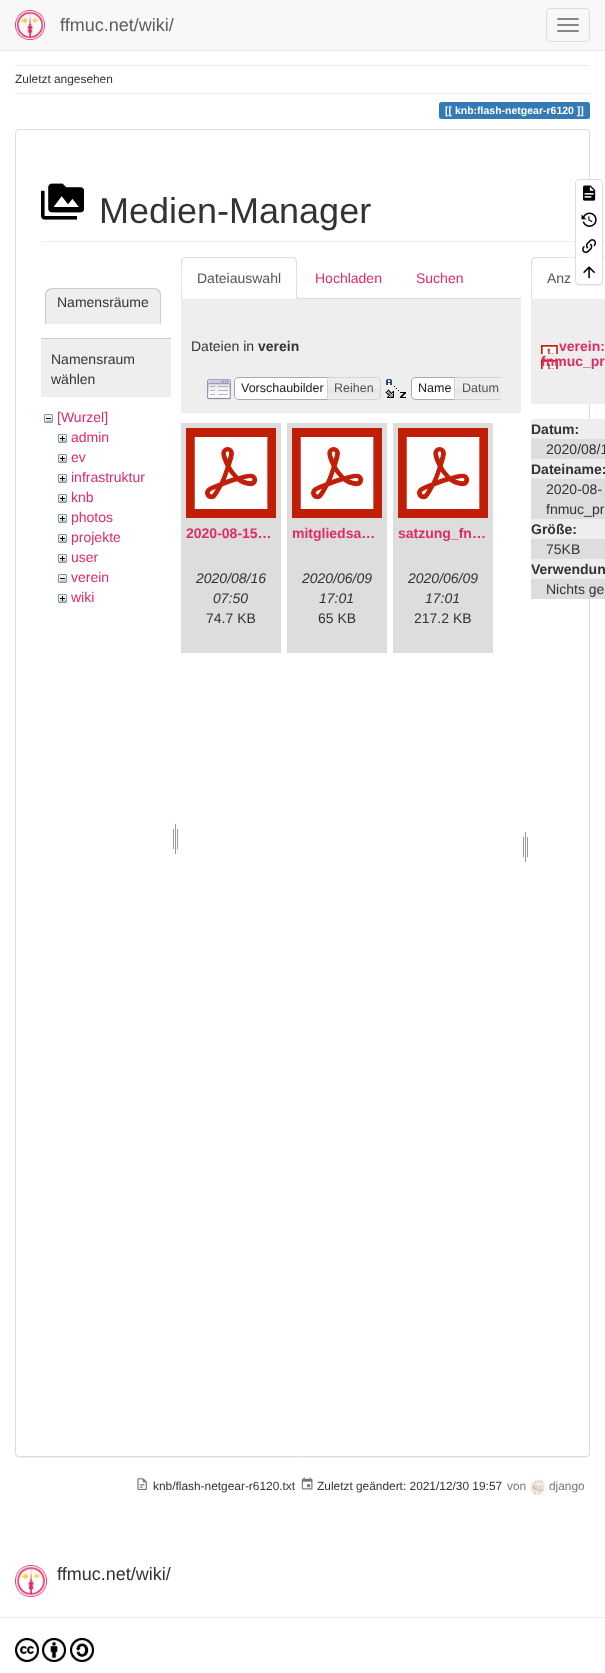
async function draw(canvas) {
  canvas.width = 605
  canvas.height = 1673
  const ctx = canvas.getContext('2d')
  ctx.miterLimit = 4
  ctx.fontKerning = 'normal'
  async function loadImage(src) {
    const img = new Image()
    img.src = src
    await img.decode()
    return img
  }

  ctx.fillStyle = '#fff'
  ctx.fillRect(0, 0, 605, 1673)
  ctx.fillStyle = '#f8f8f8'
  ctx.fillRect(0, 0, 605, 50)
  ctx.fillStyle = '#e7e7e7'
  ctx.fillRect(0, 50, 605, 1)
  ctx.drawImage(await loadImage('image0.png'), 15, 10, 30, 30)
  ctx.font = '18px Liberation Sans'
  ctx.fillStyle = '#5e5e5e'
  ctx.fillText('ffmuc.net/wiki/', 60, 31)
  ctx.beginPath()
  ctx.roundRect(546.5, 8.5, 43, 33, 3.5)
  ctx.strokeStyle = '#ddd'
  ctx.stroke()
  ctx.fillStyle = '#888'
  ctx.beginPath()
  ctx.roundRect(557, 18, 22, 2, 1)
  ctx.fill()
  ctx.beginPath()
  ctx.roundRect(557, 24, 22, 2, 1)
  ctx.fill()
  ctx.beginPath()
  ctx.roundRect(557, 30, 22, 2, 1)
  ctx.fill()
  ctx.fillStyle = '#eee'
  ctx.fillRect(15, 65, 575, 1)
  ctx.font = '11.9px Liberation Sans'
  ctx.fillStyle = '#333'
  ctx.fillText('Zuletzt angesehen', 15, 83)
  ctx.fillStyle = '#eee'
  ctx.fillRect(15, 93, 575, 1)
  ctx.fillStyle = '#337ab7'
  ctx.beginPath()
  ctx.roundRect(439, 102, 16, 17, [2.5, 0, 0, 2.5])
  ctx.fill()
  ctx.fillRect(455, 102, 119, 17)
  ctx.beginPath()
  ctx.roundRect(574, 102, 16, 17, [0, 2.5, 2.5, 0])
  ctx.fill()
  ctx.font = 'bold 10.5px Liberation Sans'
  ctx.fillStyle = '#fff'
  ctx.fillText('[[ knb:flash-netgear-r6120 ]]', 445, 114)
  ctx.fillStyle = '#0000000d'
  ctx.filter = 'blur(0.5px)'
  ctx.beginPath()
  ctx.roundRect(15, 130, 575, 1328, 4)
  ctx.fill()
  ctx.filter = 'none'
  ctx.fillStyle = '#fff'
  ctx.beginPath()
  ctx.roundRect(15.5, 129.5, 574, 1327, 3.5)
  ctx.fill()
  ctx.stroke()
  ctx.fillStyle = '#eee'
  ctx.fillRect(41, 241, 564, 1)
  ctx.fillStyle = '#fff'
  ctx.beginPath()
  ctx.moveTo(535, 257)
  ctx.lineTo(605, 257)
  ctx.bezierCurveTo(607, 257, 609, 259, 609, 261)
  ctx.lineTo(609, 299)
  ctx.lineTo(531, 299)
  ctx.lineTo(531, 261)
  ctx.bezierCurveTo(531, 259, 533, 257, 535, 257)
  ctx.closePath()
  ctx.fill()
  ctx.fillStyle = '#ddd'
  ctx.beginPath()
  ctx.moveTo(535, 257)
  ctx.lineTo(532, 258)
  ctx.lineTo(533, 259)
  ctx.lineTo(535, 258)
  ctx.lineTo(549, 258)
  ctx.bezierCurveTo(556, 258, 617, 257, 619, 259)
  ctx.lineTo(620, 258)
  ctx.lineTo(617, 257)
  ctx.closePath()
  ctx.fill()
  ctx.fillStyle = '#0000000d'
  ctx.filter = 'blur(0.5px)'
  ctx.beginPath()
  ctx.roundRect(575, 180, 28, 106, 4)
  ctx.fill()
  ctx.filter = 'none'
  ctx.fillStyle = '#fff'
  ctx.beginPath()
  ctx.roundRect(575.5, 179.5, 27, 105, 3.5)
  ctx.fill()
  ctx.stroke()
  ctx.drawImage(await loadImage('image1.png'), 583, 185, 13, 16)
  ctx.drawImage(await loadImage('image2.png'), 581, 212, 16, 15)
  ctx.drawImage(await loadImage('image3.png'), 582, 239, 15, 15)
  ctx.drawImage(await loadImage('image4.png'), 583, 266, 12, 13)
  ctx.drawImage(await loadImage('image5.png'), 41, 183, 43, 37)
  ctx.font = '36px Liberation Sans'
  ctx.fillStyle = '#333'
  ctx.fillText('Medien-Manager', 99, 223)
  ctx.fillStyle = '#eee'
  ctx.beginPath()
  ctx.roundRect(45, 288, 116, 36, [7, 7, 0, 0])
  ctx.fill()
  ctx.fillStyle = '#ccc'
  ctx.beginPath()
  ctx.moveTo(52, 288)
  ctx.bezierCurveTo(50, 288, 48, 289, 47, 290)
  ctx.lineTo(48, 291)
  ctx.lineTo(51, 289)
  ctx.lineTo(155, 289)
  ctx.lineTo(158, 291)
  ctx.lineTo(159, 290)
  ctx.bezierCurveTo(158, 289, 156, 288, 154, 288)
  ctx.closePath()
  ctx.fill()
  ctx.beginPath()
  ctx.moveTo(161, 324)
  ctx.lineTo(161, 295)
  ctx.bezierCurveTo(161, 293, 160, 291, 159, 290)
  ctx.lineTo(158, 291)
  ctx.bezierCurveTo(159, 292, 160, 293.5, 160, 295)
  ctx.lineTo(160, 323)
  ctx.closePath()
  ctx.fill()
  ctx.fillStyle = '#eee'
  ctx.beginPath()
  ctx.moveTo(161, 324)
  ctx.lineTo(160, 323)
  ctx.lineTo(46, 323)
  ctx.lineTo(45, 324)
  ctx.closePath()
  ctx.fill()
  ctx.fillStyle = '#ccc'
  ctx.beginPath()
  ctx.moveTo(45, 324)
  ctx.lineTo(46, 323)
  ctx.lineTo(46, 295)
  ctx.bezierCurveTo(46, 293.5, 47, 292, 48, 291)
  ctx.lineTo(47, 290)
  ctx.bezierCurveTo(46, 291, 45, 293, 45, 295)
  ctx.closePath()
  ctx.fill()
  ctx.font = '14px Liberation Sans'
  ctx.fillStyle = '#333'
  ctx.fillText('Namensräume', 57, 307)
  ctx.fillStyle = '#eee'
  ctx.fillRect(41, 339, 130, 58)
  ctx.fillStyle = '#ccc'
  ctx.fillRect(41, 338, 130, 1)
  ctx.fillStyle = '#333'
  ctx.fillText('Namensraum', 51, 364)
  ctx.fillText('wählen', 51, 384)
  ctx.drawImage(await loadImage('image6.png'), 44, 414, 9, 9)
  ctx.fillStyle = '#de2c68'
  ctx.fillText('[Wurzel]', 57, 422)
  ctx.drawImage(await loadImage('image7.png'), 58, 434, 9, 9)
  ctx.fillText('admin', 71, 442)
  ctx.drawImage(await loadImage('image7.png'), 58, 454, 9, 9)
  ctx.fillText('ev', 71, 462)
  ctx.drawImage(await loadImage('image7.png'), 58, 474, 9, 9)
  ctx.fillText('infrastruktur', 71, 482)
  ctx.drawImage(await loadImage('image7.png'), 58, 494, 9, 9)
  ctx.fillText('knb', 71, 502)
  ctx.drawImage(await loadImage('image7.png'), 58, 514, 9, 9)
  ctx.fillText('photos', 71, 522)
  ctx.drawImage(await loadImage('image7.png'), 58, 534, 9, 9)
  ctx.fillText('projekte', 71, 542)
  ctx.drawImage(await loadImage('image7.png'), 58, 554, 9, 9)
  ctx.fillText('user', 71, 562)
  ctx.drawImage(await loadImage('image6.png'), 58, 574, 9, 9)
  ctx.fillText('verein', 71, 582)
  ctx.drawImage(await loadImage('image7.png'), 58, 594, 9, 9)
  ctx.fillText('wiki', 71, 602)
  ctx.drawImage(await loadImage('image8.png'), 173, 823, 5, 31)
  ctx.fillStyle = '#ddd'
  ctx.fillRect(297, 298, 224, 1)
  ctx.beginPath()
  ctx.moveTo(185, 257)
  ctx.lineTo(182, 258)
  ctx.lineTo(183, 259)
  ctx.lineTo(185, 258)
  ctx.lineTo(293, 258)
  ctx.lineTo(295, 259)
  ctx.lineTo(296, 258)
  ctx.lineTo(293, 257)
  ctx.closePath()
  ctx.fill()
  ctx.beginPath()
  ctx.moveTo(297, 299)
  ctx.lineTo(297, 261)
  ctx.bezierCurveTo(297, 260, 296, 259, 296, 258)
  ctx.lineTo(295, 259)
  ctx.bezierCurveTo(297, 261, 296, 293, 296, 298)
  ctx.closePath()
  ctx.fill()
  ctx.beginPath()
  ctx.moveTo(181, 299)
  ctx.lineTo(182, 298)
  ctx.bezierCurveTo(182, 293, 181, 261, 183, 259)
  ctx.lineTo(182, 258)
  ctx.lineTo(181, 261)
  ctx.closePath()
  ctx.fill()
  ctx.fillStyle = '#555'
  ctx.fillText('Dateiauswahl', 197, 283)
  ctx.fillStyle = '#de2c68'
  ctx.fillText('Hochladen', 315, 283)
  ctx.fillText('Suchen', 416, 283)
  ctx.fillStyle = '#eee'
  ctx.fillRect(181, 299, 340, 114)
  ctx.fillStyle = '#333'
  ctx.fillText('Dateien in', 191, 351)
  ctx.font = 'bold 14px Liberation Sans'
  ctx.fillText('verein', 258, 351)
  ctx.drawImage(await loadImage('image9.png'), 207, 379, 24, 21)
  ctx.fillStyle = '#fff'
  ctx.fillRect(234, 377, 93, 23)
  ctx.beginPath()
  ctx.roundRect(234.5, 377.5, 97, 22, [3.5, 0, 0, 3.5])
  ctx.strokeStyle = '#aaa'
  ctx.stroke()
  ctx.font = '12.5px Liberation Sans'
  ctx.fillStyle = '#212121'
  ctx.fillText('Vorschaubilder', 241, 392)
  ctx.drawImage(await loadImage('image10.png'), 328, 377, 53, 23)
  ctx.beginPath()
  ctx.roundRect(327.5, 377.5, 53, 22, [0, 3.5, 3.5, 0])
  ctx.strokeStyle = '#d3d3d3'
  ctx.stroke()
  ctx.fillStyle = '#555'
  ctx.fillText('Reihen', 334, 392)
  ctx.drawImage(await loadImage('image11.png'), 385, 379, 21, 19)
  ctx.fillStyle = '#fff'
  ctx.fillRect(411, 377, 43, 23)
  ctx.beginPath()
  ctx.roundRect(411.5, 377.5, 47, 22, [3.5, 0, 0, 3.5])
  ctx.strokeStyle = '#aaa'
  ctx.stroke()
  ctx.fillStyle = '#212121'
  ctx.fillText('Name', 418, 392)
  ctx.drawImage(await loadImage('image12.png'), 455, 378, 46, 21)
  ctx.save()
  ctx.beginPath()
  ctx.rect(199, 377, 302, 28)
  ctx.clip()
  ctx.beginPath()
  ctx.roundRect(454.5, 377.5, 51, 22, [0, 3.5, 3.5, 0])
  ctx.strokeStyle = '#d3d3d3'
  ctx.stroke()
  ctx.restore()
  ctx.fillStyle = '#555'
  ctx.fillText('Datum', 462, 392)
  ctx.fillStyle = '#ddd'
  ctx.fillRect(181, 423, 100, 230)
  ctx.drawImage(await loadImage('image13.png'), 186, 428, 90, 90)
  ctx.font = 'bold 14px Liberation Sans'
  ctx.fillStyle = '#de2c68'
  ctx.fillText('2020-08-15…', 186, 538)
  ctx.font = 'italic 14px Liberation Sans'
  ctx.fillStyle = '#333'
  ctx.fillText('2020/08/16', 196, 583)
  ctx.fillText('07:50', 213, 603)
  ctx.font = '14px Liberation Sans'
  ctx.fillText('74.7 KB', 206, 623)
  ctx.fillStyle = '#ddd'
  ctx.fillRect(287, 423, 100, 230)
  ctx.drawImage(await loadImage('image13.png'), 292, 428, 90, 90)
  ctx.font = 'bold 14px Liberation Sans'
  ctx.fillStyle = '#de2c68'
  ctx.fillText('mitgliedsa…', 292, 538)
  ctx.font = 'italic 14px Liberation Sans'
  ctx.fillStyle = '#333'
  ctx.fillText('2020/06/09', 302, 583)
  ctx.fillText('17:01', 319, 603)
  ctx.font = '14px Liberation Sans'
  ctx.fillText('65 KB', 318, 623)
  ctx.fillStyle = '#ddd'
  ctx.fillRect(393, 423, 100, 230)
  ctx.drawImage(await loadImage('image13.png'), 398, 428, 90, 90)
  ctx.font = 'bold 14px Liberation Sans'
  ctx.fillStyle = '#de2c68'
  ctx.fillText('satzung_fn…', 398, 538)
  ctx.font = 'italic 14px Liberation Sans'
  ctx.fillStyle = '#333'
  ctx.fillText('2020/06/09', 408, 583)
  ctx.fillText('17:01', 425, 603)
  ctx.font = '14px Liberation Sans'
  ctx.fillText('217.2 KB', 414, 623)
  ctx.drawImage(await loadImage('image8.png'), 523, 831, 5, 31)
  ctx.fillStyle = '#ddd'
  ctx.beginPath()
  ctx.moveTo(531, 299)
  ctx.lineTo(532, 298)
  ctx.bezierCurveTo(532, 293, 531, 261, 533, 259)
  ctx.lineTo(532, 258)
  ctx.lineTo(531, 261)
  ctx.closePath()
  ctx.fill()
  ctx.fillStyle = '#555'
  ctx.fillText('Anz', 547, 283)
  ctx.fillStyle = '#eee'
  ctx.fillRect(531, 299, 74, 105)
  ctx.drawImage(await loadImage('image14.png'), 541, 345, 17, 24)
  ctx.font = 'bold 14px Liberation Sans'
  ctx.fillStyle = '#de2c68'
  ctx.fillText('verein:', 559, 351)
  ctx.fillText('fnmuc_pr', 541, 366)
  ctx.fillStyle = '#eee'
  ctx.fillRect(531, 419, 74, 20)
  ctx.fillStyle = '#333'
  ctx.fillText('Datum:', 531, 434)
  ctx.fillStyle = '#ddd'
  ctx.fillRect(531, 439, 74, 20)
  ctx.font = '14px Liberation Sans'
  ctx.fillStyle = '#333'
  ctx.fillText('2020/08/1', 546, 454)
  ctx.fillStyle = '#eee'
  ctx.fillRect(531, 459, 74, 20)
  ctx.font = 'bold 14px Liberation Sans'
  ctx.fillStyle = '#333'
  ctx.fillText('Dateiname:', 531, 474)
  ctx.fillStyle = '#ddd'
  ctx.fillRect(531, 479, 74, 40)
  ctx.font = '14px Liberation Sans'
  ctx.fillStyle = '#333'
  ctx.fillText('2020-08-', 546, 494)
  ctx.fillText('fnmuc_pr', 546, 514)
  ctx.fillStyle = '#eee'
  ctx.fillRect(531, 519, 74, 20)
  ctx.font = 'bold 14px Liberation Sans'
  ctx.fillStyle = '#333'
  ctx.fillText('Größe:', 531, 534)
  ctx.fillStyle = '#ddd'
  ctx.fillRect(531, 539, 74, 20)
  ctx.font = '14px Liberation Sans'
  ctx.fillStyle = '#333'
  ctx.fillText('75KB', 546, 554)
  ctx.fillStyle = '#eee'
  ctx.fillRect(531, 559, 74, 20)
  ctx.font = 'bold 14px Liberation Sans'
  ctx.fillStyle = '#333'
  ctx.fillText('Verwendun', 531, 574)
  ctx.fillStyle = '#ddd'
  ctx.fillRect(531, 579, 74, 20)
  ctx.font = '14px Liberation Sans'
  ctx.fillStyle = '#333'
  ctx.fillText('Nichts ge', 546, 594)
  ctx.drawImage(await loadImage('image15.png'), 137, 1478, 10, 13)
  ctx.font = '11.9px Liberation Sans'
  ctx.fillText('knb/flash-netgear-r6120.txt', 153, 1490)
  ctx.drawImage(await loadImage('image16.png'), 301, 1477, 12, 13)
  ctx.fillText('Zuletzt geändert: 2021/12/30 19:57', 317, 1490)
  ctx.fillStyle = '#777'
  ctx.fillText('von', 507, 1490)
  ctx.drawImage(await loadImage('image17.png'), 530, 1479, 16, 16)
  ctx.fillText('django', 549, 1490)
  ctx.drawImage(await loadImage('image18.png'), 15, 1565, 32, 32)
  ctx.font = '18px Liberation Sans'
  ctx.fillStyle = '#333'
  ctx.fillText('ffmuc.net/wiki/', 57, 1580)
  ctx.fillStyle = '#eee'
  ctx.fillRect(0, 1617, 605, 1)
  ctx.drawImage(await loadImage('image19.png'), 15, 1638, 24, 24)
  ctx.drawImage(await loadImage('image20.png'), 42, 1638, 24, 24)
  ctx.drawImage(await loadImage('image21.png'), 70, 1638, 24, 24)
}

draw(document.querySelector('canvas'))
